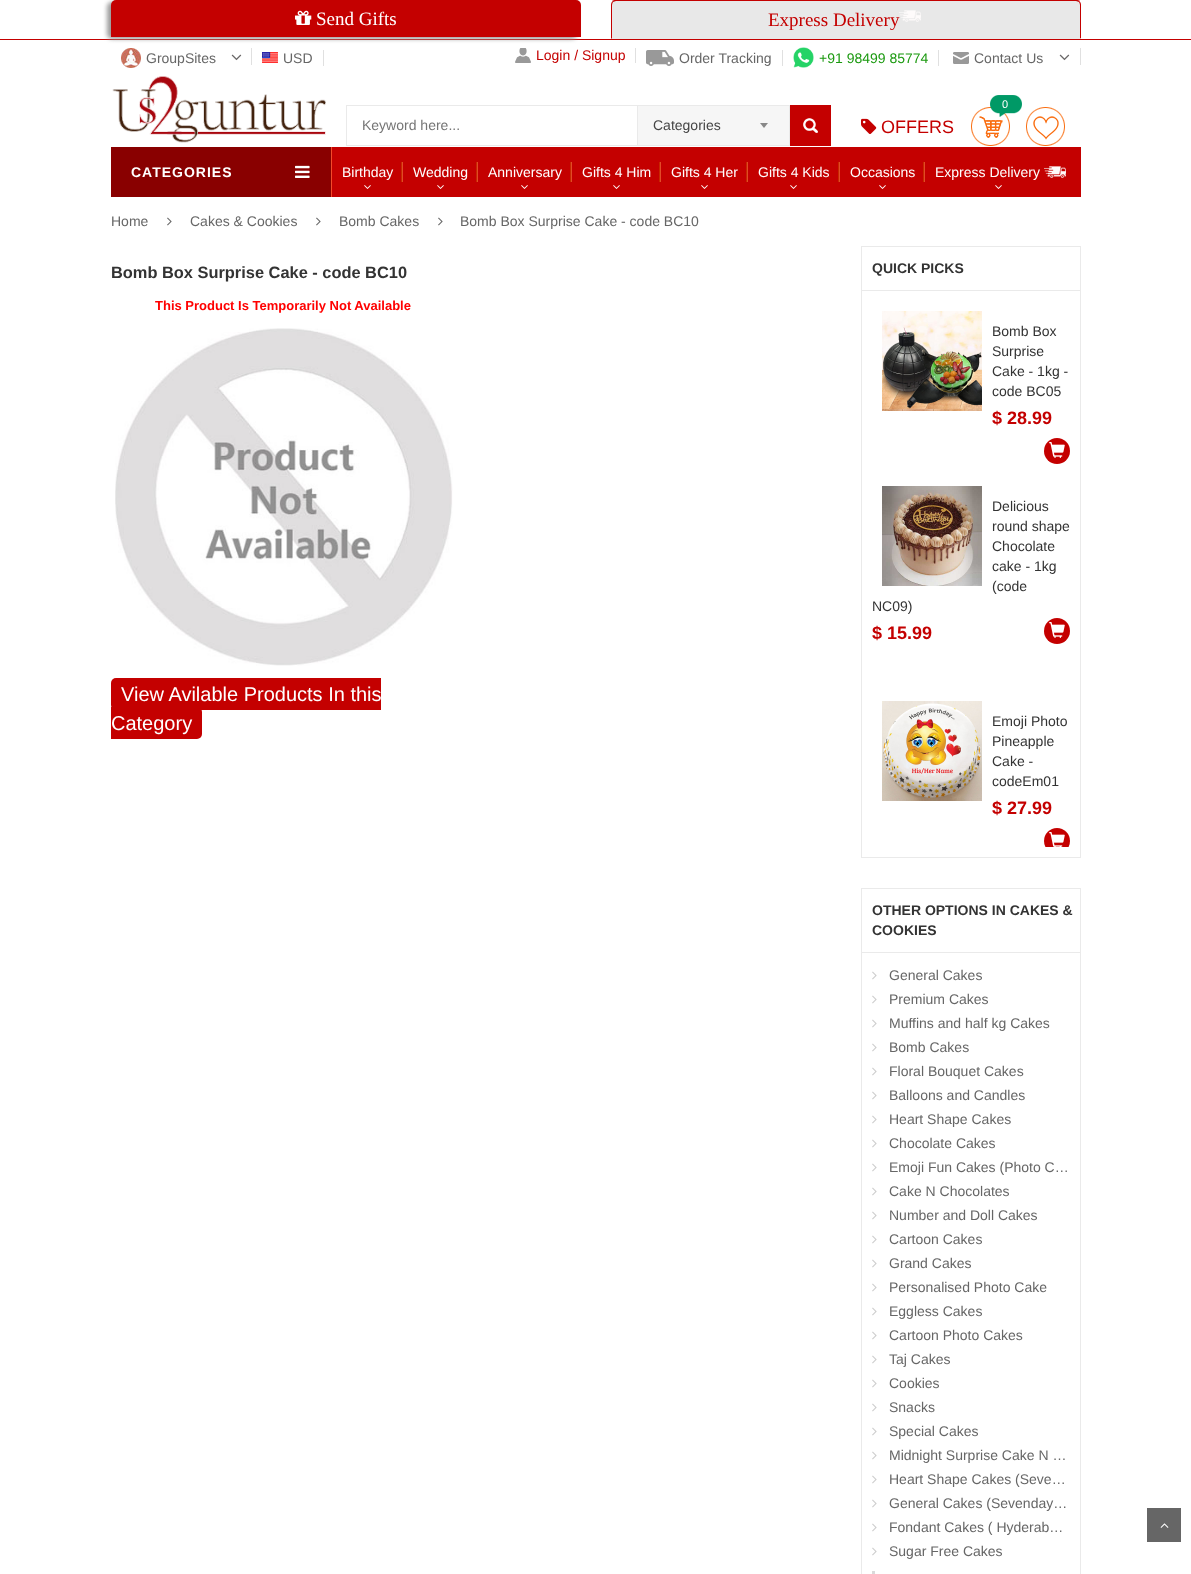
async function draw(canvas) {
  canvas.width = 1191
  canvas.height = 1574
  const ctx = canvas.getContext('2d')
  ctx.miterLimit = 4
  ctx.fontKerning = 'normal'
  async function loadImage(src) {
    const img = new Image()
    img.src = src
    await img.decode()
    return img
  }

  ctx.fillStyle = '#fff'
  ctx.fillRect(0, 0, 1191, 1574)
  ctx.fillStyle = '#c40000'
  ctx.fillRect(0, 39, 1191, 1)
  ctx.fillStyle = '#9c9c9c'
  ctx.filter = 'blur(2px)'
  ctx.beginPath()
  ctx.roundRect(107, 2, 470, 37, 5)
  ctx.fill()
  ctx.filter = 'none'
  ctx.fillStyle = '#c40000'
  ctx.beginPath()
  ctx.roundRect(111, 0, 470, 37, [5, 5, 0, 0])
  ctx.fill()
  ctx.drawImage(await loadImage('image0.png'), 295, 10, 17, 15)
  ctx.font = '19px Liberation Serif'
  ctx.fillStyle = '#fff'
  ctx.fillText('Send Gifts', 316, 25)
  ctx.fillStyle = '#e8e8e8'
  ctx.beginPath()
  ctx.roundRect(611, 0, 470, 39, [5, 5, 0, 0])
  ctx.fill()
  ctx.fillStyle = '#c40000'
  ctx.beginPath()
  ctx.moveTo(616, 0)
  ctx.bezierCurveTo(614, 0, 613, 0, 612, 1)
  ctx.lineTo(613, 2)
  ctx.lineTo(616, 1)
  ctx.lineTo(1076, 1)
  ctx.lineTo(1079, 2)
  ctx.lineTo(1080, 1)
  ctx.bezierCurveTo(1079, 0, 1078, 0, 1076, 0)
  ctx.closePath()
  ctx.fill()
  ctx.beginPath()
  ctx.moveTo(1081, 39)
  ctx.lineTo(1081, 5)
  ctx.bezierCurveTo(1081, 3.5, 1080.5, 2, 1079.5, 1.5)
  ctx.lineTo(1079, 2)
  ctx.bezierCurveTo(1079.5, 3, 1080, 4, 1080, 5)
  ctx.lineTo(1080, 38)
  ctx.closePath()
  ctx.fill()
  ctx.fillStyle = '#e8e8e8'
  ctx.beginPath()
  ctx.moveTo(1081, 39)
  ctx.lineTo(1080, 38)
  ctx.lineTo(612, 38)
  ctx.lineTo(611, 39)
  ctx.closePath()
  ctx.fill()
  ctx.fillStyle = '#c40000'
  ctx.beginPath()
  ctx.moveTo(611, 39)
  ctx.lineTo(612, 38)
  ctx.lineTo(612, 5)
  ctx.bezierCurveTo(612, 4, 612.5, 3, 613, 2)
  ctx.lineTo(612.5, 1.5)
  ctx.bezierCurveTo(611.5, 2, 611, 3.5, 611, 5)
  ctx.closePath()
  ctx.fill()
  ctx.fillText('Express Delivery', 768, 26)
  ctx.drawImage(await loadImage('image1.png'), 899, 10, 22, 12)
  ctx.fillStyle = '#e0e0e0'
  ctx.fillRect(251, 48, 1, 17)
  ctx.drawImage(await loadImage('image2.png'), 121, 48, 20, 20)
  ctx.font = '14px Liberation Sans'
  ctx.fillStyle = '#666'
  ctx.fillText('GroupSites', 146, 63)
  ctx.drawImage(await loadImage('image3.png'), 231, 54, 11, 7)
  ctx.fillStyle = '#e0e0e0'
  ctx.fillRect(323, 50, 1, 16)
  ctx.drawImage(await loadImage('image4.png'), 262, 52, 16, 11)
  ctx.fillStyle = '#666'
  ctx.fillText('USD', 283, 63)
  ctx.fillStyle = '#e0e0e0'
  ctx.fillRect(635, 48, 1, 15)
  ctx.drawImage(await loadImage('image5.png'), 515, 48, 16, 15)
  ctx.fillStyle = '#c40000'
  ctx.fillText('Login / Signup', 536, 60)
  ctx.fillStyle = '#e0e0e0'
  ctx.fillRect(782, 50, 1, 16)
  ctx.drawImage(await loadImage('image6.png'), 646, 50, 28, 16)
  ctx.fillStyle = '#666'
  ctx.fillText('Order Tracking', 679, 63)
  ctx.fillStyle = '#e0e0e0'
  ctx.fillRect(938, 50, 1, 16)
  ctx.drawImage(await loadImage('image7.png'), 793, 47, 21, 21)
  ctx.fillStyle = '#1a990f'
  ctx.fillText('+91 98499 85774', 819, 63)
  ctx.fillStyle = '#e0e0e0'
  ctx.fillRect(1080, 48, 1, 17)
  ctx.drawImage(await loadImage('image8.png'), 953, 52, 16, 12)
  ctx.fillStyle = '#666'
  ctx.fillText('Contact Us', 974, 63)
  ctx.drawImage(await loadImage('image3.png'), 1059, 54, 11, 7)
  ctx.drawImage(await loadImage('image9.png'), 112, 76, 214, 67)
  ctx.strokeStyle = '#eaeaea'
  ctx.strokeRect(346.5, 105.5, 484, 40)
  ctx.fillStyle = '#757575'
  ctx.fillText('Keyword here...', 362, 130)
  ctx.fillStyle = '#f6f6f6'
  ctx.fillRect(638, 106, 151, 39)
  ctx.fillStyle = '#eaeaea'
  ctx.fillRect(637, 106, 1, 39)
  ctx.fillRect(789, 106, 1, 40)
  ctx.fillStyle = '#444'
  ctx.fillText('Categories', 653, 130)
  ctx.fillStyle = '#888'
  ctx.beginPath()
  ctx.moveTo(760, 123)
  ctx.lineTo(768, 123)
  ctx.lineTo(764, 128)
  ctx.closePath()
  ctx.fill()
  ctx.fillStyle = '#c40000'
  ctx.fillRect(790, 105, 41, 41)
  ctx.drawImage(await loadImage('image10.png'), 803, 118, 15, 15)
  ctx.drawImage(await loadImage('image11.png'), 971, 107, 39, 39)
  ctx.drawImage(await loadImage('image12.png'), 990, 95, 32, 22)
  ctx.font = '11px Liberation Sans'
  ctx.fillStyle = '#fff'
  ctx.fillText('0', 1002, 108)
  ctx.drawImage(await loadImage('image13.png'), 861, 118, 16, 16)
  ctx.font = '18px Liberation Sans'
  ctx.fillStyle = '#c40000'
  ctx.fillText('OFFERS', 881, 133)
  ctx.drawImage(await loadImage('image14.png'), 1026, 107, 39, 39)
  ctx.fillStyle = '#890000'
  ctx.fillRect(111, 147, 220, 50)
  ctx.letterSpacing = '1px'
  ctx.font = 'bold 14px Liberation Sans'
  ctx.fillStyle = '#fff'
  ctx.fillText('CATEGORIES', 131, 177)
  ctx.drawImage(await loadImage('image15.png'), 295, 165, 15, 13)
  ctx.fillStyle = '#c40000'
  ctx.fillRect(332, 147, 749, 50)
  ctx.fillStyle = '#f44a2a'
  ctx.fillRect(331, 147, 1, 50)
  ctx.drawImage(await loadImage('image16.png'), 401, 162, 2, 20)
  ctx.letterSpacing = '0px'
  ctx.font = '14px Liberation Sans'
  ctx.fillStyle = '#fff'
  ctx.fillText('Birthday', 342, 177)
  ctx.drawImage(await loadImage('image17.png'), 364, 185, 7, 4)
  ctx.drawImage(await loadImage('image16.png'), 476, 162, 2, 20)
  ctx.fillText('Wedding', 413, 177)
  ctx.drawImage(await loadImage('image17.png'), 437, 185, 7, 4)
  ctx.drawImage(await loadImage('image16.png'), 570, 162, 2, 20)
  ctx.fillText('Anniversary', 488, 177)
  ctx.drawImage(await loadImage('image17.png'), 521, 185, 7, 4)
  ctx.drawImage(await loadImage('image16.png'), 659, 162, 2, 20)
  ctx.fillText('Gifts 4 Him', 582, 177)
  ctx.drawImage(await loadImage('image17.png'), 613, 185, 7, 4)
  ctx.drawImage(await loadImage('image16.png'), 746, 162, 2, 20)
  ctx.fillText('Gifts 4 Her', 671, 177)
  ctx.drawImage(await loadImage('image17.png'), 701, 185, 7, 4)
  ctx.drawImage(await loadImage('image16.png'), 838, 162, 2, 20)
  ctx.fillText('Gifts 4 Kids', 758, 177)
  ctx.drawImage(await loadImage('image17.png'), 790, 185, 7, 4)
  ctx.drawImage(await loadImage('image16.png'), 923, 162, 2, 20)
  ctx.fillText('Occasions', 850, 177)
  ctx.drawImage(await loadImage('image17.png'), 879, 185, 7, 4)
  ctx.fillText('Express Delivery', 935, 177)
  ctx.drawImage(await loadImage('image18.png'), 1044, 166, 22, 12)
  ctx.drawImage(await loadImage('image17.png'), 995, 185, 7, 4)
  ctx.fillStyle = '#666'
  ctx.fillText('Home', 111, 226)
  ctx.drawImage(await loadImage('image19.png'), 167, 217, 5, 9)
  ctx.fillText('Cakes & Cookies', 190, 226)
  ctx.drawImage(await loadImage('image19.png'), 316, 217, 5, 9)
  ctx.fillText('Bomb Cakes', 339, 226)
  ctx.drawImage(await loadImage('image19.png'), 438, 217, 5, 9)
  ctx.fillText('Bomb Box Surprise Cake - code BC10', 460, 226)
  ctx.font = 'bold 16.4px Liberation Sans'
  ctx.fillStyle = '#333'
  ctx.fillText('Bomb Box Surprise Cake - code BC10', 111, 278)
  ctx.font = 'bold 13px Liberation Sans'
  ctx.fillStyle = '#f00'
  ctx.fillText('This Product Is Temporarily Not Available', 155, 310)
  ctx.drawImage(await loadImage('image20.png'), 115, 328, 338, 338)
  ctx.fillStyle = '#c40000'
  ctx.beginPath()
  ctx.roundRect(111, 678, 270, 32, [5, 0, 0, 5])
  ctx.fill()
  ctx.font = '20px Liberation Sans'
  ctx.fillStyle = '#fff'
  ctx.fillText('View Avilable Products In this', 121, 701)
  ctx.fillStyle = '#c40000'
  ctx.beginPath()
  ctx.roundRect(111, 707, 91, 32, [0, 5, 5, 0])
  ctx.fill()
  ctx.fillStyle = '#fff'
  ctx.fillText('Category', 111, 730)
  ctx.strokeRect(861.5, 246.5, 219, 611)
  ctx.fillStyle = '#eaeaea'
  ctx.fillRect(862, 290, 218, 1)
  ctx.font = 'bold 14px Liberation Sans'
  ctx.fillStyle = '#333'
  ctx.fillText('QUICK PICKS', 872, 273)
  ctx.drawImage(await loadImage('image21.png'), 882, 311, 100, 100)
  ctx.font = '14px Liberation Sans'
  ctx.fillText('Bomb Box', 992, 336)
  ctx.fillText('Surprise', 992, 356)
  ctx.fillText('Cake - 1kg -', 992, 376)
  ctx.fillText('code BC05', 992, 396)
  ctx.font = 'bold 18px Liberation Sans'
  ctx.fillStyle = '#c40000'
  ctx.fillText('$ 28.99', 992, 424)
  ctx.beginPath()
  ctx.arc(1057, 451, 13, 0, 2 * Math.PI)
  ctx.fill()
  ctx.drawImage(await loadImage('image22.png'), 1049, 442, 16, 16)
  ctx.drawImage(await loadImage('image23.png'), 882, 486, 100, 100)
  ctx.font = '14px Liberation Sans'
  ctx.fillStyle = '#333'
  ctx.fillText('Delicious', 992, 511)
  ctx.fillText('round shape', 992, 531)
  ctx.fillText('Chocolate', 992, 551)
  ctx.fillText('cake - 1kg', 992, 571)
  ctx.fillText('(code', 992, 591)
  ctx.fillText('NC09)', 872, 611)
  ctx.font = 'bold 18px Liberation Sans'
  ctx.fillStyle = '#c40000'
  ctx.fillText('$ 15.99', 872, 639)
  ctx.beginPath()
  ctx.arc(1057, 631, 13, 0, 2 * Math.PI)
  ctx.fill()
  ctx.drawImage(await loadImage('image22.png'), 1049, 622, 16, 16)
  ctx.drawImage(await loadImage('image24.png'), 882, 701, 100, 100)
  ctx.font = '14px Liberation Sans'
  ctx.fillStyle = '#333'
  ctx.fillText('Emoji Photo', 992, 726)
  ctx.fillText('Pineapple', 992, 746)
  ctx.fillText('Cake -', 992, 766)
  ctx.fillText('codeEm01', 992, 786)
  ctx.font = 'bold 18px Liberation Sans'
  ctx.fillStyle = '#c40000'
  ctx.fillText('$ 27.99', 992, 814)
  ctx.save()
  ctx.beginPath()
  ctx.rect(872, 301, 198, 546)
  ctx.clip()
  ctx.beginPath()
  ctx.arc(1057, 841, 13, 0, 2 * Math.PI)
  ctx.fill()
  ctx.restore()
  ctx.drawImage(await loadImage('image25.png'), 1049, 832, 16, 15)
  ctx.strokeRect(861.5, 888.5, 219, 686)
  ctx.fillStyle = '#eaeaea'
  ctx.fillRect(862, 952, 218, 1)
  ctx.font = 'bold 14px Liberation Sans'
  ctx.fillStyle = '#333'
  ctx.fillText('OTHER OPTIONS IN CAKES &', 872, 915)
  ctx.fillText('COOKIES', 872, 935)
  ctx.drawImage(await loadImage('image26.png'), 872, 971, 5, 9)
  ctx.font = '14px Liberation Sans'
  ctx.fillStyle = '#666'
  ctx.fillText('General Cakes', 889, 980)
  ctx.drawImage(await loadImage('image26.png'), 872, 995, 5, 9)
  ctx.fillText('Premium Cakes', 889, 1004)
  ctx.drawImage(await loadImage('image26.png'), 872, 1019, 5, 9)
  ctx.fillText('Muffins and half kg Cakes', 889, 1028)
  ctx.drawImage(await loadImage('image26.png'), 872, 1043, 5, 9)
  ctx.fillText('Bomb Cakes', 889, 1052)
  ctx.drawImage(await loadImage('image26.png'), 872, 1067, 5, 9)
  ctx.fillText('Floral Bouquet Cakes', 889, 1076)
  ctx.drawImage(await loadImage('image26.png'), 872, 1091, 5, 9)
  ctx.fillText('Balloons and Candles', 889, 1100)
  ctx.drawImage(await loadImage('image26.png'), 872, 1115, 5, 9)
  ctx.fillText('Heart Shape Cakes', 889, 1124)
  ctx.drawImage(await loadImage('image26.png'), 872, 1139, 5, 9)
  ctx.fillText('Chocolate Cakes', 889, 1148)
  ctx.drawImage(await loadImage('image26.png'), 872, 1163, 5, 9)
  ctx.fillText('Emoji Fun Cakes (Photo C…', 889, 1172)
  ctx.drawImage(await loadImage('image26.png'), 872, 1187, 5, 9)
  ctx.fillText('Cake N Chocolates', 889, 1196)
  ctx.drawImage(await loadImage('image26.png'), 872, 1211, 5, 9)
  ctx.fillText('Number and Doll Cakes', 889, 1220)
  ctx.drawImage(await loadImage('image26.png'), 872, 1235, 5, 9)
  ctx.fillText('Cartoon Cakes', 889, 1244)
  ctx.drawImage(await loadImage('image26.png'), 872, 1259, 5, 9)
  ctx.fillText('Grand Cakes', 889, 1268)
  ctx.drawImage(await loadImage('image26.png'), 872, 1283, 5, 9)
  ctx.fillText('Personalised Photo Cake', 889, 1292)
  ctx.drawImage(await loadImage('image26.png'), 872, 1307, 5, 9)
  ctx.fillText('Eggless Cakes', 889, 1316)
  ctx.drawImage(await loadImage('image26.png'), 872, 1331, 5, 9)
  ctx.fillText('Cartoon Photo Cakes', 889, 1340)
  ctx.drawImage(await loadImage('image26.png'), 872, 1355, 5, 9)
  ctx.fillText('Taj Cakes', 889, 1364)
  ctx.drawImage(await loadImage('image26.png'), 872, 1379, 5, 9)
  ctx.fillText('Cookies', 889, 1388)
  ctx.drawImage(await loadImage('image26.png'), 872, 1403, 5, 9)
  ctx.fillText('Snacks', 889, 1412)
  ctx.drawImage(await loadImage('image26.png'), 872, 1427, 5, 9)
  ctx.fillText('Special Cakes', 889, 1436)
  ctx.drawImage(await loadImage('image26.png'), 872, 1451, 5, 9)
  ctx.fillText('Midnight Surprise Cake N …', 889, 1460)
  ctx.drawImage(await loadImage('image26.png'), 872, 1475, 5, 9)
  ctx.fillText('Heart Shape Cakes (Seve…', 889, 1484)
  ctx.drawImage(await loadImage('image26.png'), 872, 1499, 5, 9)
  ctx.fillText('General Cakes (Sevenday…', 889, 1508)
  ctx.drawImage(await loadImage('image26.png'), 872, 1523, 5, 9)
  ctx.fillText('Fondant Cakes ( Hyderab…', 889, 1532)
  ctx.drawImage(await loadImage('image26.png'), 872, 1547, 5, 9)
  ctx.fillText('Sugar Free Cakes', 889, 1556)
  ctx.fillStyle = '#dadada'
  ctx.fillRect(872, 1571, 3, 3)
  ctx.fillStyle = '#666'
  ctx.fillRect(1147, 1508, 34, 34)
  ctx.drawImage(await loadImage('image27.png'), 1160, 1523, 9, 5)
}

draw(document.querySelector('canvas'))
